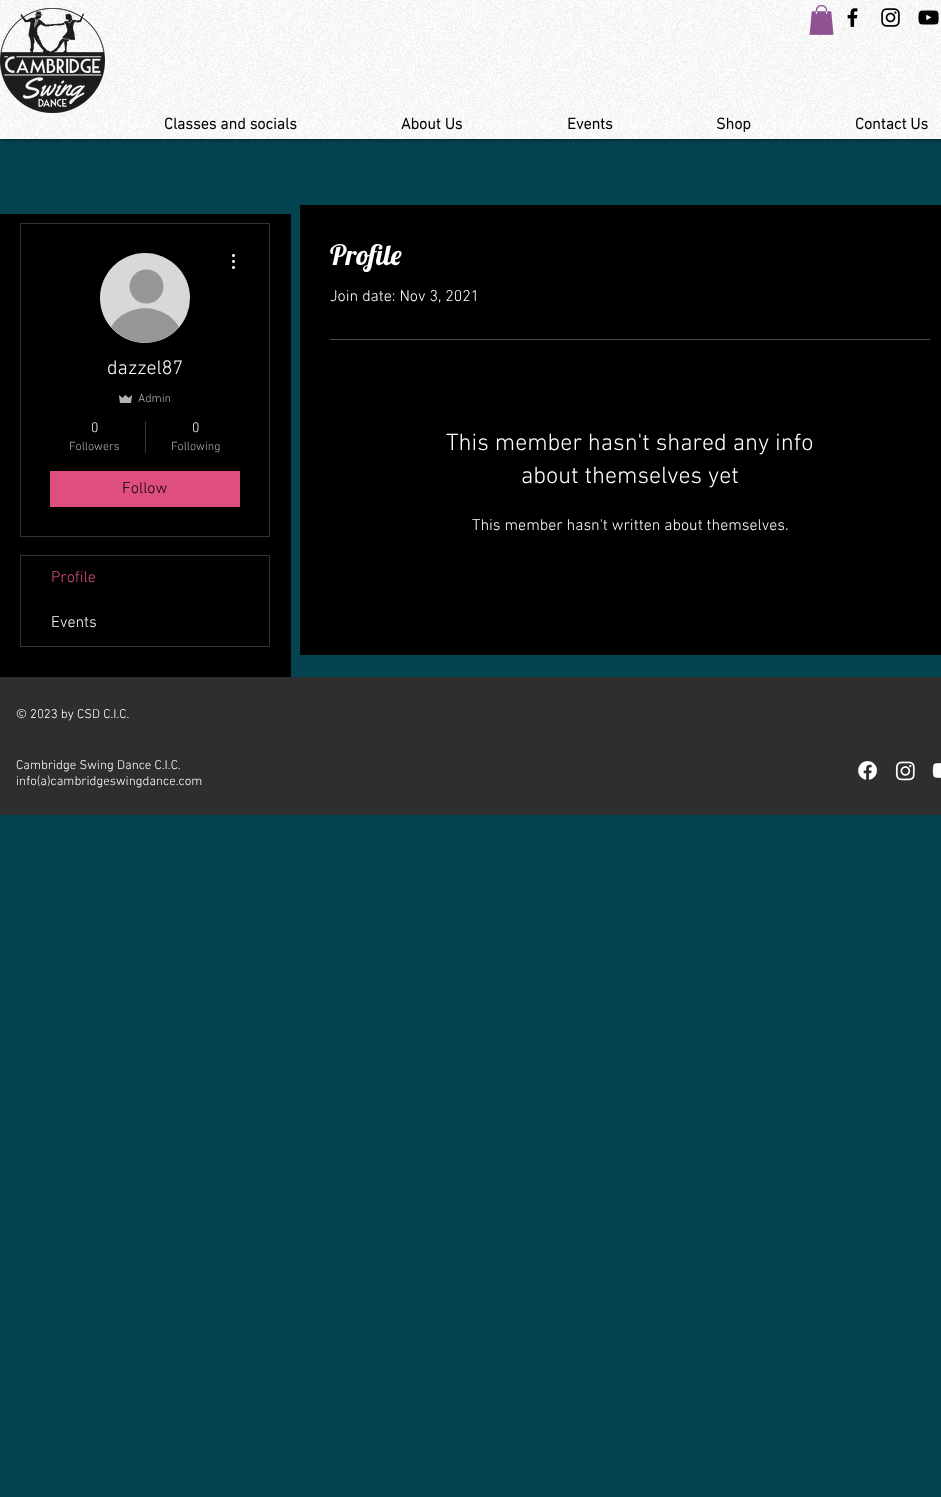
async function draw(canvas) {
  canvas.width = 941
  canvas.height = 1497
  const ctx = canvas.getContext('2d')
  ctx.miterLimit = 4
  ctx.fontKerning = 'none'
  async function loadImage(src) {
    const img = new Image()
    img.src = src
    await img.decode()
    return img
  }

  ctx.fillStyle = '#044450'
  ctx.fillRect(0, 0, 941, 1497)
  ctx.fillStyle = '#fff'
  ctx.fillRect(0, 0, 941, 139)
  ctx.save()
  ctx.beginPath()
  ctx.rect(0, 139, 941, 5)
  ctx.clip()
  ctx.fillStyle = '#000000b3'
  ctx.filter = 'blur(2.5px)'
  ctx.beginPath()
  ctx.rect(0, 0, 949, 139)
  ctx.fill()
  ctx.filter = 'none'
  ctx.restore()
  ctx.drawImage(await loadImage('image0.png'), 0, 0, 941, 139)
  ctx.drawImage(await loadImage('image1.png'), 0, 8, 105, 105)
  ctx.drawImage(await loadImage('image2.png'), 809, 5, 25, 30)
  ctx.drawImage(await loadImage('image3.png'), 847, 8, 11, 20)
  ctx.drawImage(await loadImage('image4.png'), 881, 8, 19, 19)
  ctx.drawImage(await loadImage('image5.png'), 918, 10, 21, 15)
  ctx.font = 'bold 16px "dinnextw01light"'
  ctx.fillStyle = '#000'
  ctx.fillText('Classes and socials', 164, 129)
  ctx.fillText('About Us', 401, 129)
  ctx.fillText('Events', 567, 129)
  ctx.fillText('Shop', 716, 129)
  ctx.fillText('Contact Us', 855, 129)
  ctx.fillRect(0, 214, 291, 463)
  ctx.strokeStyle = '#333'
  ctx.strokeRect(20.5, 223.5, 249, 313)
  ctx.fillStyle = '#d8d8d8'
  ctx.beginPath()
  ctx.arc(145, 298, 45, 0, 2 * Math.PI)
  ctx.fill()
  ctx.fillStyle = '#969696'
  ctx.beginPath()
  ctx.arc(146.5, 286.5, 17, 0, 2 * Math.PI)
  ctx.fill()
  ctx.beginPath()
  ctx.moveTo(179, 327)
  ctx.bezierCurveTo(161, 348, 129, 348, 111, 327)
  ctx.bezierCurveTo(126, 302, 164, 302, 179, 327)
  ctx.closePath()
  ctx.fill()
  ctx.drawImage(await loadImage('image6.png'), 232, 254, 3, 15)
  ctx.font = '300 20px "dinnextw01light"'
  ctx.fillStyle = '#fff'
  ctx.fillText('dazzel87', 107, 374)
  ctx.drawImage(await loadImage('image7.png'), 119, 395, 13, 8)
  ctx.font = '300 12px "dinnextw01light"'
  ctx.fillStyle = '#b3b3b3'
  ctx.fillText('Admin', 138, 402)
  ctx.font = '300 14px "dinnextw01light"'
  ctx.fillStyle = '#fff'
  ctx.fillText('0', 91, 432)
  ctx.font = '300 12px "dinnextw01light"'
  ctx.fillStyle = '#b3b3b3'
  ctx.fillText('Followers', 69, 450)
  ctx.fillStyle = '#333'
  ctx.fillRect(145, 421, 1, 32)
  ctx.font = '300 14px "dinnextw01light"'
  ctx.fillStyle = '#fff'
  ctx.fillText('0', 192, 432)
  ctx.font = '300 12px "dinnextw01light"'
  ctx.fillStyle = '#b3b3b3'
  ctx.fillText('Following', 171, 450)
  ctx.fillStyle = '#de4e7f'
  ctx.fillRect(50, 471, 190, 36)
  ctx.font = '300 16px "dinnextw01light"'
  ctx.fillStyle = '#000'
  ctx.fillText('Follow', 122, 493)
  ctx.strokeRect(20.5, 555.5, 249, 91)
  ctx.fillStyle = '#de4e7f'
  ctx.fillText('Profile', 51, 582)
  ctx.fillStyle = '#fff'
  ctx.fillText('Events', 51, 627)
  ctx.fillStyle = '#000'
  ctx.fillRect(300, 205, 641, 450)
  ctx.font = '28px Lobster'
  ctx.fillStyle = '#fff'
  ctx.fillText('Profile', 330, 265)
  ctx.font = '300 16px "dinnextw01light"'
  ctx.fillText('Join date: Nov 3, 2021', 330, 301)
  ctx.fillStyle = '#4d4d4d'
  ctx.fillRect(330, 339, 600, 1)
  ctx.font = '300 24px "dinnextw01light"'
  ctx.fillStyle = '#fff'
  ctx.fillText('This member hasn\'t shared any info', 446, 450)
  ctx.fillText('about themselves yet', 521, 483)
  ctx.font = '300 16px "dinnextw01light"'
  ctx.fillText('This member hasn\'t written about themselves.', 472, 530)
  ctx.fillStyle = '#2f2e2e'
  ctx.fillRect(0, 677, 941, 138)
  ctx.font = '300 13px "dinnextw01light"'
  ctx.fillStyle = '#fff'
  ctx.fillText('© 2023 by CSD C.I.C.', 16, 718)
  ctx.fillText('Cambridge Swing Dance C.I.C.', 16, 769)
  ctx.fillText('info(a)cambridgeswingdance.com', 16, 785)
  ctx.drawImage(await loadImage('image8.png'), 858, 761, 20, 19)
  ctx.drawImage(await loadImage('image9.png'), 895, 761, 20, 20)
  ctx.drawImage(await loadImage('image10.png'), 932, 762, 9, 16)
}

draw(document.querySelector('canvas'))
